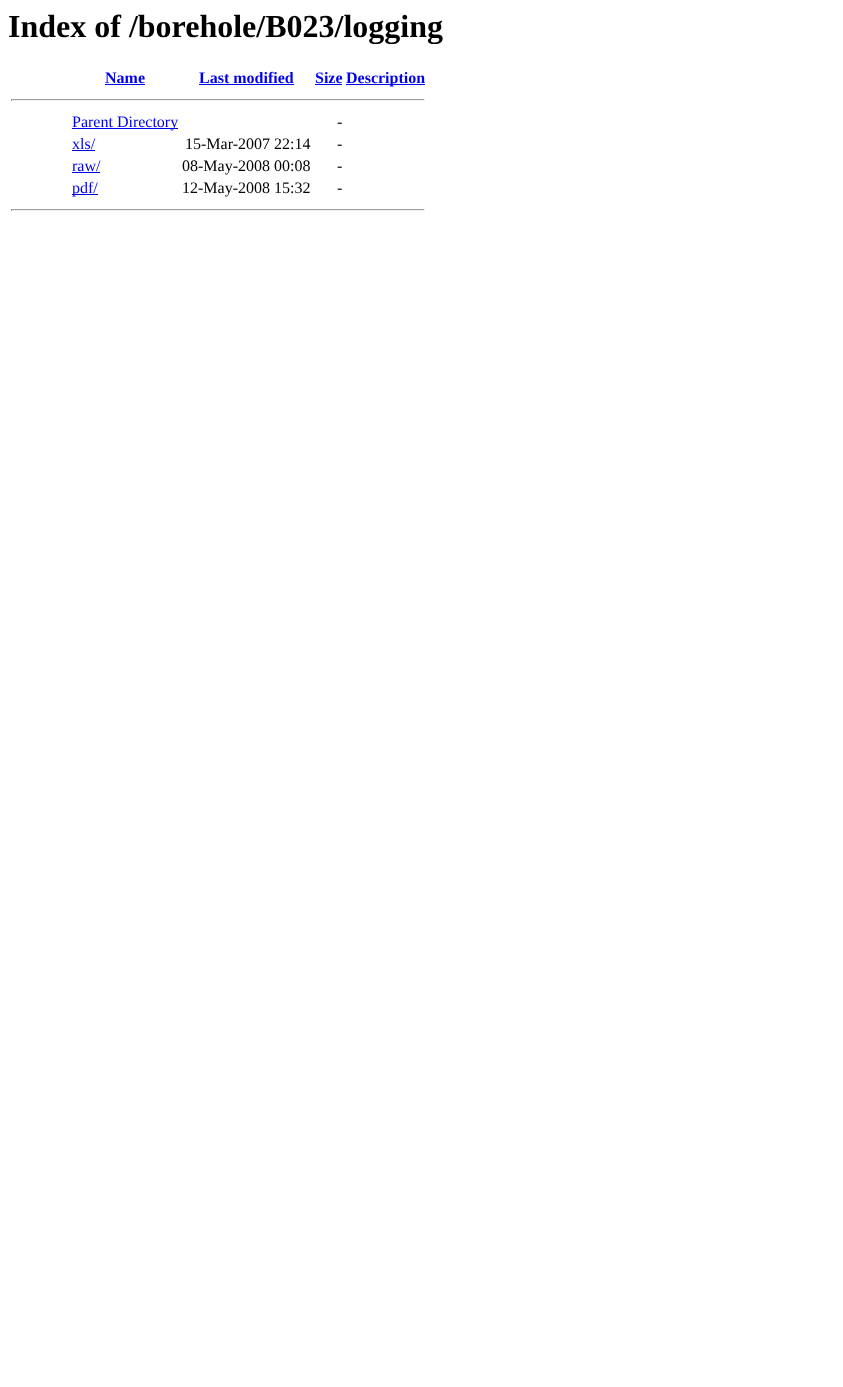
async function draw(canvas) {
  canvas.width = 843
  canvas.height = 1387
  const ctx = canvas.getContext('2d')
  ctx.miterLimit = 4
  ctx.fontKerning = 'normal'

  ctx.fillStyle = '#fff'
  ctx.fillRect(0, 0, 843, 1387)
  ctx.font = 'bold 32px Liberation Serif'
  ctx.fillStyle = '#000'
  ctx.fillText('Index of /borehole/B023/logging', 8, 37)
  ctx.font = 'bold 16px Liberation Serif'
  ctx.fillStyle = '#00e'
  ctx.fillText('Name', 105, 83)
  ctx.fillRect(105, 84, 40, 1)
  ctx.fillText('Last modified', 199, 83)
  ctx.fillRect(199, 84, 95, 1)
  ctx.fillText('Size', 315, 83)
  ctx.fillRect(315, 84, 27, 1)
  ctx.fillRect(346, 84, 79, 1)
  ctx.fillText('Description', 346, 83)
  ctx.fillStyle = '#9f9f9f'
  ctx.fillRect(11, 99, 414, 1)
  ctx.fillStyle = '#eee'
  ctx.fillRect(424, 99, 1, 2)
  ctx.fillRect(11, 100, 414, 1)
  ctx.fillStyle = '#9f9f9f'
  ctx.fillRect(11, 99, 1, 2)
  ctx.fillStyle = '#00e'
  ctx.fillRect(72, 128, 106, 1)
  ctx.font = '16px Liberation Serif'
  ctx.fillText('Parent Directory', 72, 127)
  ctx.fillStyle = '#000'
  ctx.fillText('-', 337, 127)
  ctx.fillStyle = '#00e'
  ctx.fillText('xls/', 72, 149)
  ctx.fillRect(72, 150, 23, 1)
  ctx.fillStyle = '#000'
  ctx.fillText('15-Mar-2007 22:14', 185, 149)
  ctx.fillText('-', 337, 149)
  ctx.fillStyle = '#00e'
  ctx.fillText('raw/', 72, 171)
  ctx.fillRect(72, 172, 28, 1)
  ctx.fillStyle = '#000'
  ctx.fillText('08-May-2008 00:08', 182, 171)
  ctx.fillText('-', 337, 171)
  ctx.fillStyle = '#00e'
  ctx.fillRect(72, 194, 26, 1)
  ctx.fillText('pdf/', 72, 193)
  ctx.fillStyle = '#000'
  ctx.fillText('12-May-2008 15:32', 182, 193)
  ctx.fillText('-', 337, 193)
  ctx.fillStyle = '#9f9f9f'
  ctx.fillRect(11, 209, 414, 1)
  ctx.fillStyle = '#eee'
  ctx.fillRect(424, 209, 1, 2)
  ctx.fillRect(11, 210, 414, 1)
  ctx.fillStyle = '#9f9f9f'
  ctx.fillRect(11, 209, 1, 2)
}

draw(document.querySelector('canvas'))
